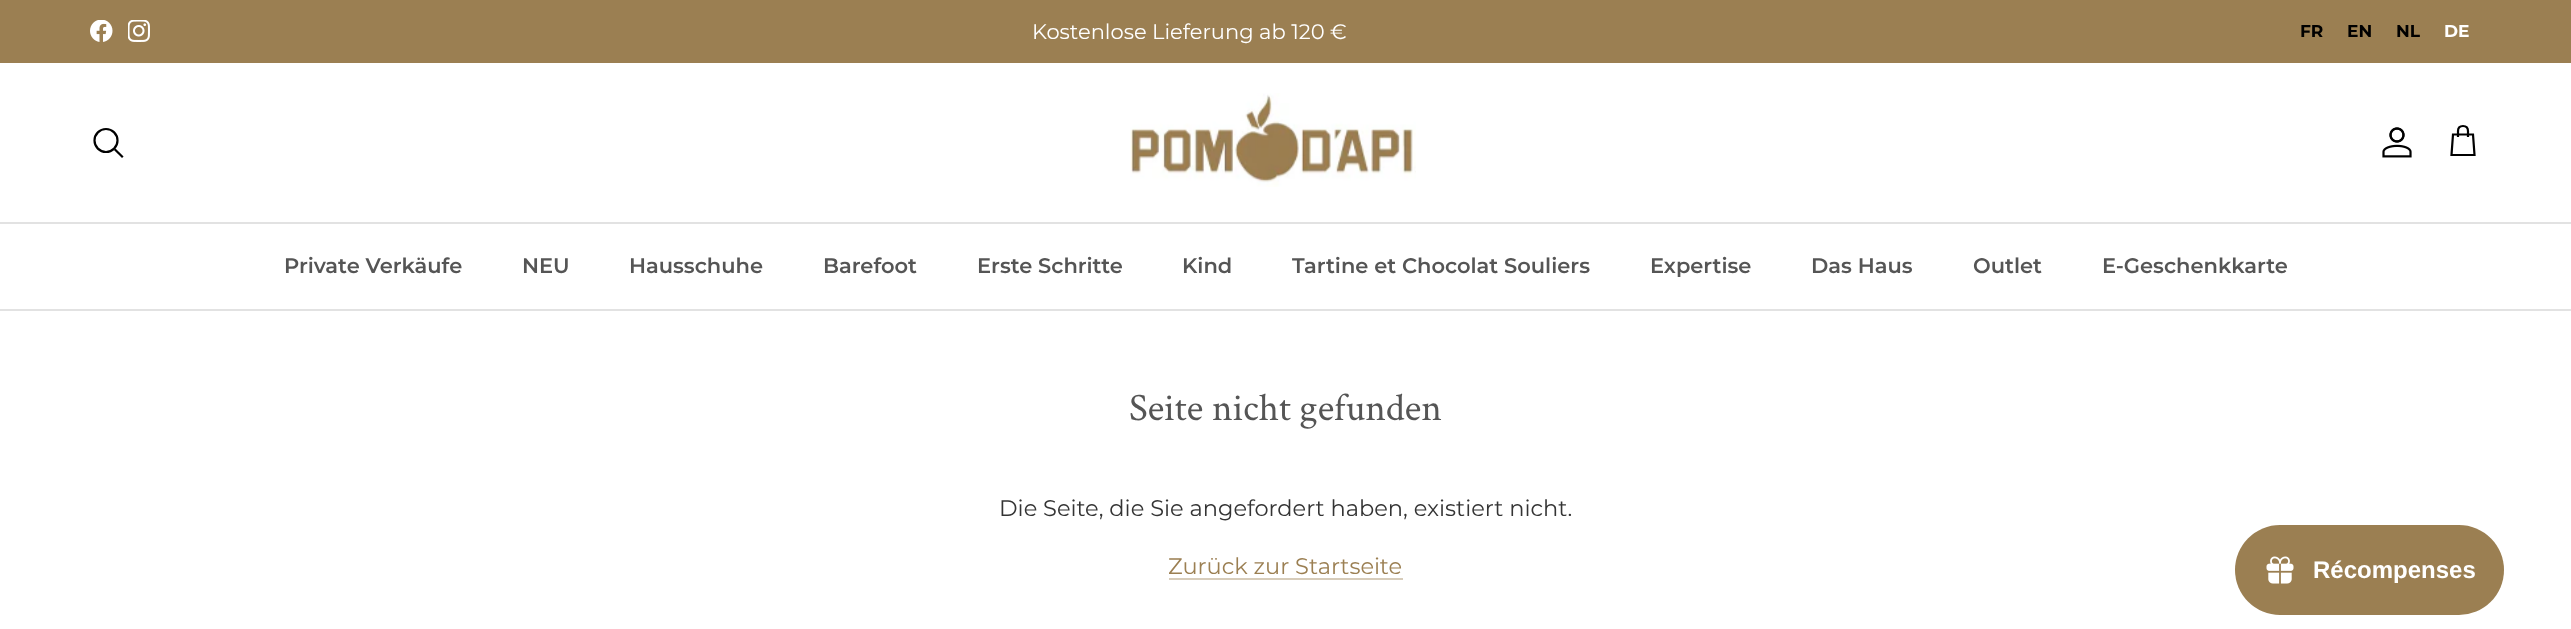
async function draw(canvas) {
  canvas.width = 2571
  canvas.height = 629
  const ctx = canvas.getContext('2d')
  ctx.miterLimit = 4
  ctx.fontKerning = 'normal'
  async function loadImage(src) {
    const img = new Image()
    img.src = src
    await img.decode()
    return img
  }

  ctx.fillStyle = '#fff'
  ctx.fillRect(0, 0, 2571, 629)
  ctx.fillStyle = '#9b7f52'
  ctx.fillRect(0, 0, 2571, 63)
  ctx.drawImage(await loadImage('image0.png'), 90, 20, 23, 22)
  ctx.drawImage(await loadImage('image1.png'), 128, 20, 22, 22)
  ctx.font = '21px Montserrat'
  ctx.fillStyle = '#fff'
  ctx.fillText('Kostenlose Lieferung ab 120 €', 1032, 39)
  ctx.font = 'bold 17px Montserrat'
  ctx.fillStyle = '#000'
  ctx.fillText('FR', 2300, 37)
  ctx.fillText('EN', 2347, 37)
  ctx.fillText('NL', 2396, 37)
  ctx.fillStyle = '#fff'
  ctx.fillText('DE', 2444, 37)
  ctx.fillStyle = '#e2e2e2'
  ctx.fillRect(0, 222, 2571, 2)
  ctx.beginPath()
  ctx.arc(106, 140.5, 11.5, 0, 2 * Math.PI)
  ctx.strokeStyle = '#000'
  ctx.lineWidth = 2.2
  ctx.stroke()
  ctx.beginPath()
  ctx.moveTo(115.5, 150)
  ctx.lineTo(122, 156.5)
  ctx.lineCap = 'square'
  ctx.stroke()
  ctx.drawImage(await loadImage('image2.png'), 1130, 93, 286, 94)
  ctx.drawImage(await loadImage('image3.png'), 2382, 127, 30, 31)
  ctx.beginPath()
  ctx.moveTo(2468, 137)
  ctx.lineTo(2468, 131)
  ctx.bezierCurveTo(2468, 128, 2466, 126, 2463, 126)
  ctx.bezierCurveTo(2460, 126, 2458, 128, 2458, 131)
  ctx.lineTo(2458, 137)
  ctx.moveTo(2453, 134.5)
  ctx.lineTo(2473, 134.5)
  ctx.lineTo(2474.5, 155)
  ctx.lineTo(2451.5, 155)
  ctx.closePath()
  ctx.lineCap = 'butt'
  ctx.stroke()
  ctx.fillRect(0, 309, 2571, 2)
  ctx.font = '600 21px Montserrat'
  ctx.fillStyle = '#555'
  ctx.fillText('Private Verkäufe', 284, 273)
  ctx.fillText('NEU', 522, 273)
  ctx.fillText('Hausschuhe', 629, 273)
  ctx.fillText('Barefoot', 823, 273)
  ctx.fillText('Erste Schritte', 977, 273)
  ctx.fillText('Kind', 1182, 273)
  ctx.fillText('Tartine et Chocolat Souliers', 1292, 273)
  ctx.fillText('Expertise', 1650, 273)
  ctx.fillText('Das Haus', 1811, 273)
  ctx.fillText('Outlet', 1973, 273)
  ctx.fillText('E-Geschenkkarte', 2102, 273)
  ctx.font = '39px Crimson Text'
  ctx.fillText('Seite nicht gefunden', 1129, 420)
  ctx.font = '22.5px Montserrat'
  ctx.fillStyle = '#343434'
  ctx.fillText('Die Seite, die Sie angefordert haben, existiert nicht.', 999, 516)
  ctx.fillStyle = '#9b7f52'
  ctx.fillText('Zurück zur Startseite', 1168, 574)
  ctx.fillStyle = '#d7ccba'
  ctx.fillRect(1169, 578, 234, 2)
  ctx.fillStyle = '#9b7f52'
  ctx.beginPath()
  ctx.roundRect(2235, 525, 269, 90, 45)
  ctx.fill()
  ctx.drawImage(await loadImage('image4.png'), 2266, 556, 28, 28)
  ctx.font = 'bold 24px Liberation Sans'
  ctx.fillStyle = '#fff'
  ctx.fillText('Récompenses', 2313, 578)
}

draw(document.querySelector('canvas'))
